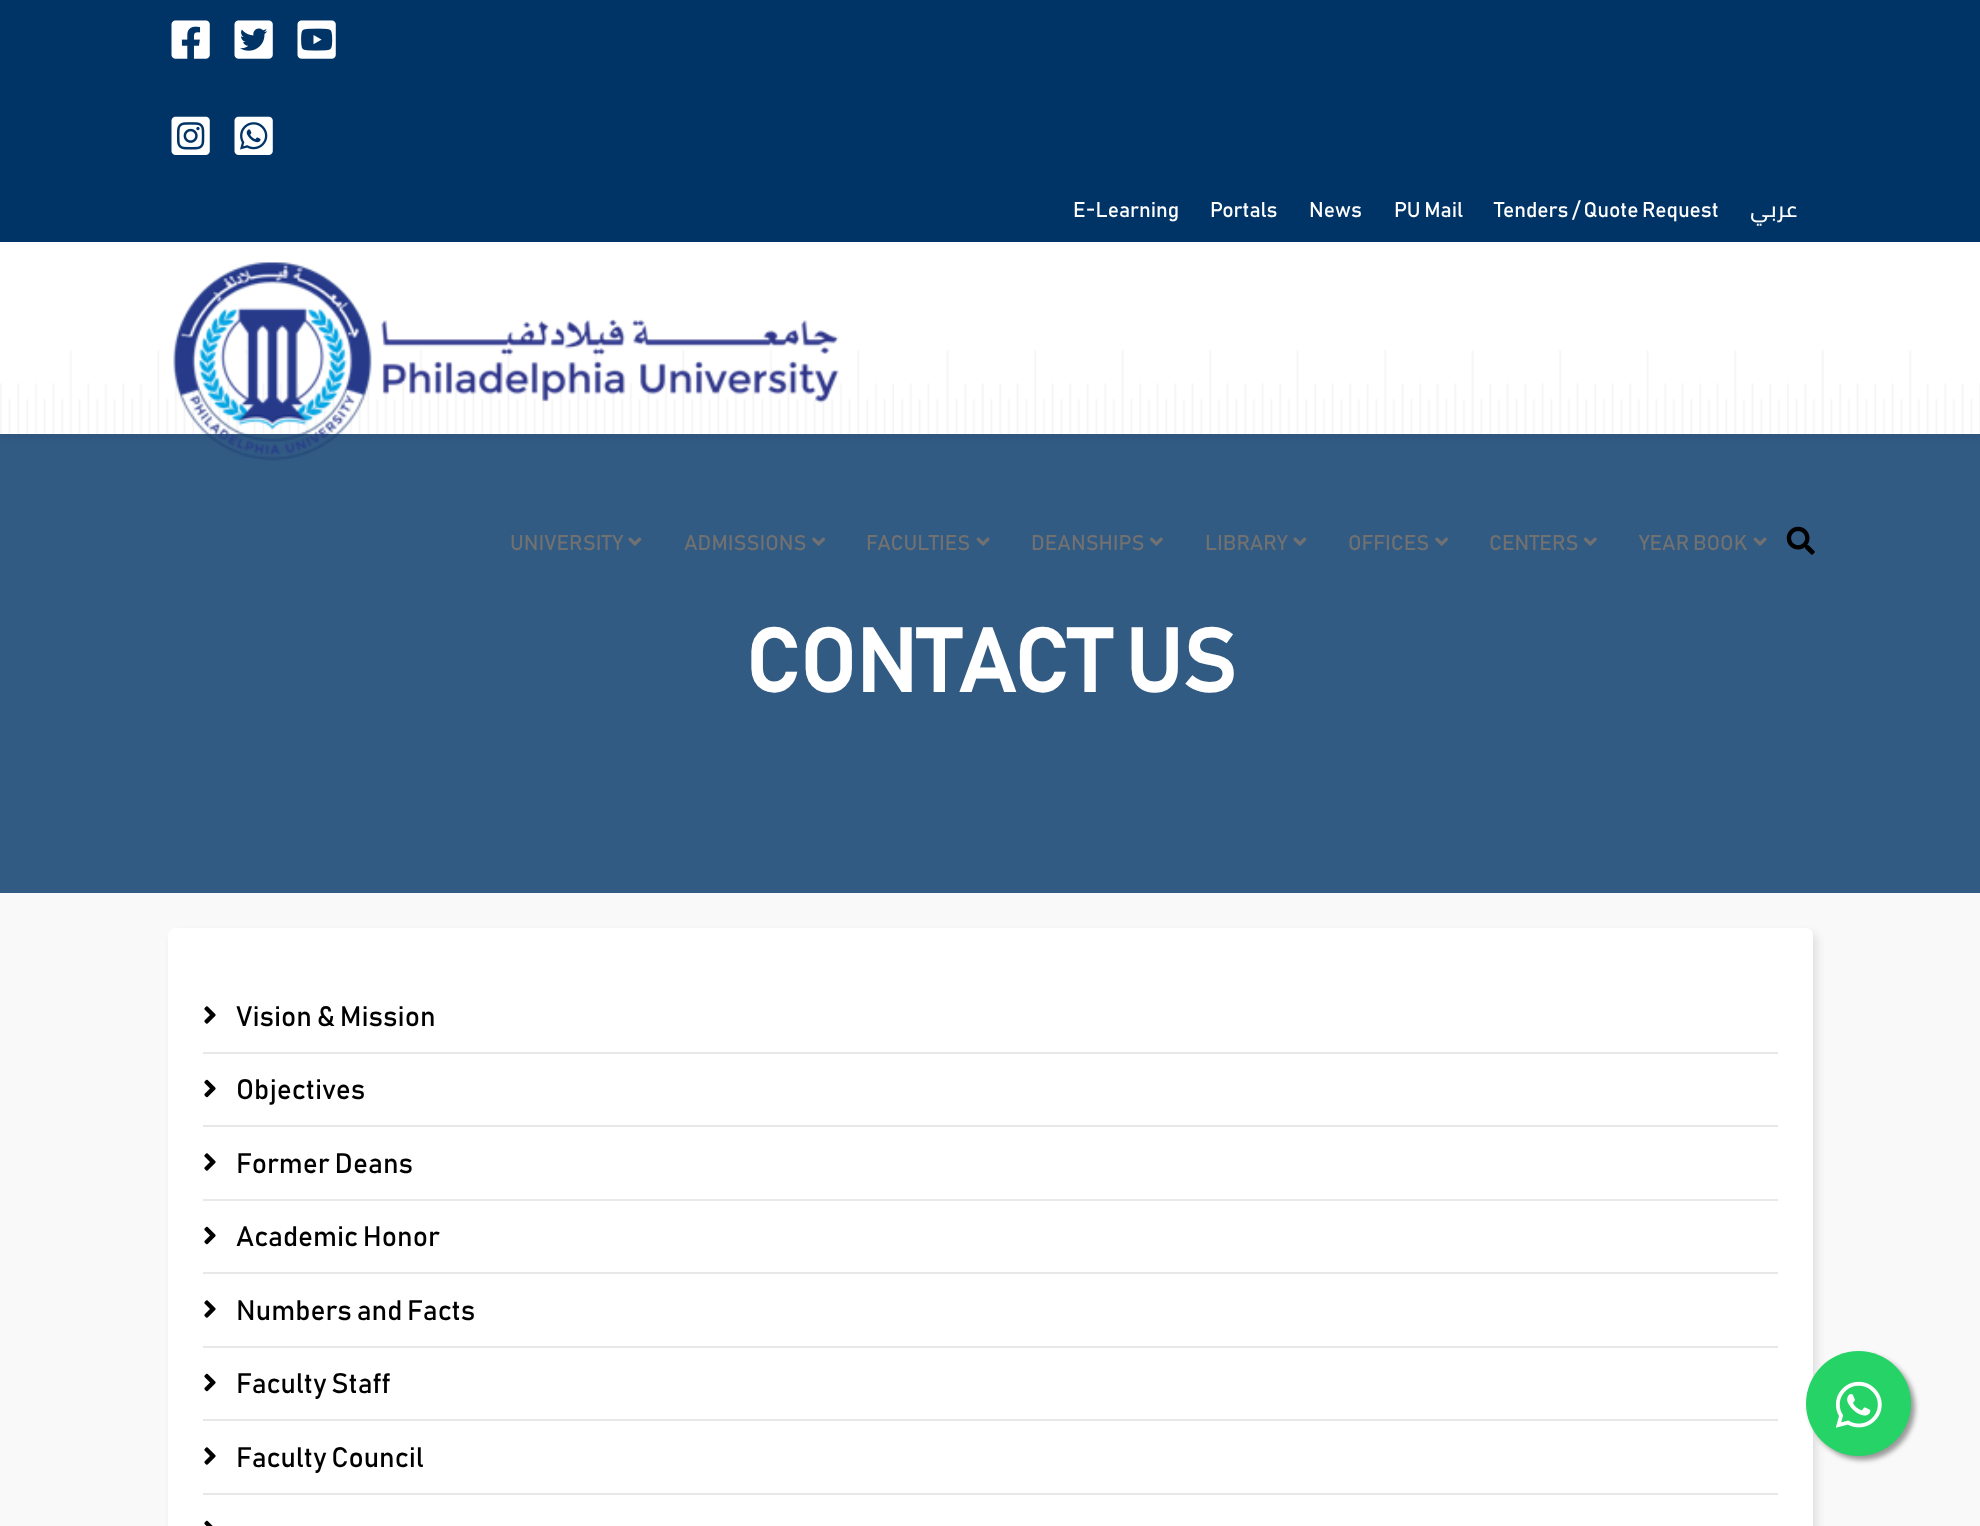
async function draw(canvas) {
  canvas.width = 1980
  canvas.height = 1526
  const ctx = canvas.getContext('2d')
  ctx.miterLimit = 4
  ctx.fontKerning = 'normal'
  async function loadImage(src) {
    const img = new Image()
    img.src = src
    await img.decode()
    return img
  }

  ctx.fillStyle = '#f9f9f9'
  ctx.fillRect(0, 0, 1980, 1526)
  ctx.fillStyle = '#036'
  ctx.fillRect(0, 0, 1980, 242)
  ctx.drawImage(await loadImage('image0.png'), 171, 20, 39, 39)
  ctx.drawImage(await loadImage('image1.png'), 234, 20, 39, 39)
  ctx.drawImage(await loadImage('image2.png'), 297, 20, 39, 39)
  ctx.drawImage(await loadImage('image3.png'), 171, 116, 39, 39)
  ctx.drawImage(await loadImage('image4.png'), 234, 116, 39, 39)
  ctx.font = '21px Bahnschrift'
  ctx.fillStyle = '#fff'
  ctx.fillText('E-Learning', 1073, 217)
  ctx.fillText('Portals', 1210, 217)
  ctx.fillText('News', 1309, 217)
  ctx.fillText('PU Mail', 1394, 217)
  ctx.fillText('Tenders / Quote Request', 1494, 217)
  ctx.direction = 'rtl'
  ctx.font = '600 21px Cairo'
  ctx.fillText('عربي', 1797, 217)
  ctx.fillStyle = '#325b84'
  ctx.fillRect(0, 434, 1980, 459)
  ctx.fillStyle = '#0000000d'
  ctx.filter = 'blur(2.5px)'
  ctx.beginPath()
  ctx.rect(0, 247, 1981, 192)
  ctx.fill()
  ctx.filter = 'none'
  ctx.fillStyle = '#fff'
  ctx.fillRect(0, 242, 1980, 192)
  ctx.drawImage(await loadImage('image5.png'), 0, 350, 1980, 84)
  ctx.drawImage(await loadImage('image6.png'), 173, 262, 666, 199)
  ctx.direction = 'ltr'
  ctx.font = '21px Bahnschrift'
  ctx.fillStyle = '#717171'
  ctx.fillText('UNIVERSITY', 510, 550)
  ctx.drawImage(await loadImage('image7.png'), 628, 537, 14, 9)
  ctx.fillText('ADMISSIONS', 684, 550)
  ctx.drawImage(await loadImage('image8.png'), 812, 537, 14, 9)
  ctx.fillText('FACULTIES', 866, 550)
  ctx.drawImage(await loadImage('image9.png'), 976, 537, 14, 9)
  ctx.fillText('DEANSHIPS', 1031, 550)
  ctx.drawImage(await loadImage('image10.png'), 1149, 537, 14, 9)
  ctx.fillText('LIBRARY', 1205, 550)
  ctx.drawImage(await loadImage('image7.png'), 1293, 537, 14, 9)
  ctx.fillText('OFFICES', 1348, 550)
  ctx.drawImage(await loadImage('image8.png'), 1435, 537, 14, 9)
  ctx.fillText('CENTERS', 1489, 550)
  ctx.drawImage(await loadImage('image10.png'), 1583, 537, 14, 9)
  ctx.fillText('YEAR BOOK', 1639, 550)
  ctx.drawImage(await loadImage('image9.png'), 1753, 537, 14, 9)
  ctx.drawImage(await loadImage('image11.png'), 1786, 526, 29, 29)
  ctx.font = 'bold 87.5px Bahnschrift'
  ctx.fillStyle = '#fff'
  ctx.fillText('CONTACT US', 745, 692)
  ctx.fillStyle = '#0000001a'
  ctx.filter = 'blur(4.5px)'
  ctx.beginPath()
  ctx.roundRect(172, 933, 1645, 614, 7)
  ctx.fill()
  ctx.filter = 'none'
  ctx.fillStyle = '#fff'
  ctx.beginPath()
  ctx.roundRect(168, 928, 1645, 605, 7)
  ctx.fill()
  ctx.fillStyle = '#e8e8e8'
  ctx.fillRect(203, 1052, 1575, 2)
  ctx.drawImage(await loadImage('image12.png'), 204, 1006, 12, 18)
  ctx.font = '28px Bahnschrift'
  ctx.fillStyle = '#000'
  ctx.fillText('Vision & Mission', 236, 1026)
  ctx.fillStyle = '#e8e8e8'
  ctx.fillRect(203, 1125, 1575, 2)
  ctx.drawImage(await loadImage('image13.png'), 204, 1079, 12, 19)
  ctx.fillStyle = '#000'
  ctx.fillText('Objectives', 236, 1099)
  ctx.fillStyle = '#e8e8e8'
  ctx.fillRect(203, 1199, 1575, 2)
  ctx.drawImage(await loadImage('image12.png'), 204, 1153, 12, 18)
  ctx.fillStyle = '#000'
  ctx.fillText('Former Deans', 236, 1173)
  ctx.fillStyle = '#e8e8e8'
  ctx.fillRect(203, 1272, 1575, 2)
  ctx.drawImage(await loadImage('image13.png'), 204, 1226, 12, 19)
  ctx.fillStyle = '#000'
  ctx.fillText('Academic Honor', 236, 1246)
  ctx.fillStyle = '#e8e8e8'
  ctx.fillRect(203, 1346, 1575, 2)
  ctx.drawImage(await loadImage('image12.png'), 204, 1300, 12, 18)
  ctx.fillStyle = '#000'
  ctx.fillText('Numbers and Facts', 236, 1320)
  ctx.fillStyle = '#e8e8e8'
  ctx.fillRect(203, 1419, 1575, 2)
  ctx.drawImage(await loadImage('image13.png'), 204, 1373, 12, 19)
  ctx.fillStyle = '#000'
  ctx.fillText('Faculty Staff', 236, 1393)
  ctx.fillStyle = '#e8e8e8'
  ctx.fillRect(203, 1493, 1575, 2)
  ctx.drawImage(await loadImage('image12.png'), 204, 1447, 12, 18)
  ctx.fillStyle = '#000'
  ctx.fillText('Faculty Council', 236, 1467)
  ctx.drawImage(await loadImage('image14.png'), 204, 1520, 9, 6)
  ctx.fillStyle = '#999'
  ctx.filter = 'blur(2.5px)'
  ctx.beginPath()
  ctx.roundRect(1810, 1355, 105, 105, 52.5)
  ctx.fill()
  ctx.filter = 'none'
  ctx.fillStyle = '#25d366'
  ctx.beginPath()
  ctx.arc(1858.5, 1403.5, 52.5, 0, 2 * Math.PI)
  ctx.fill()
  ctx.drawImage(await loadImage('image15.png'), 1835, 1381, 47, 47)
}

draw(document.querySelector('canvas'))
